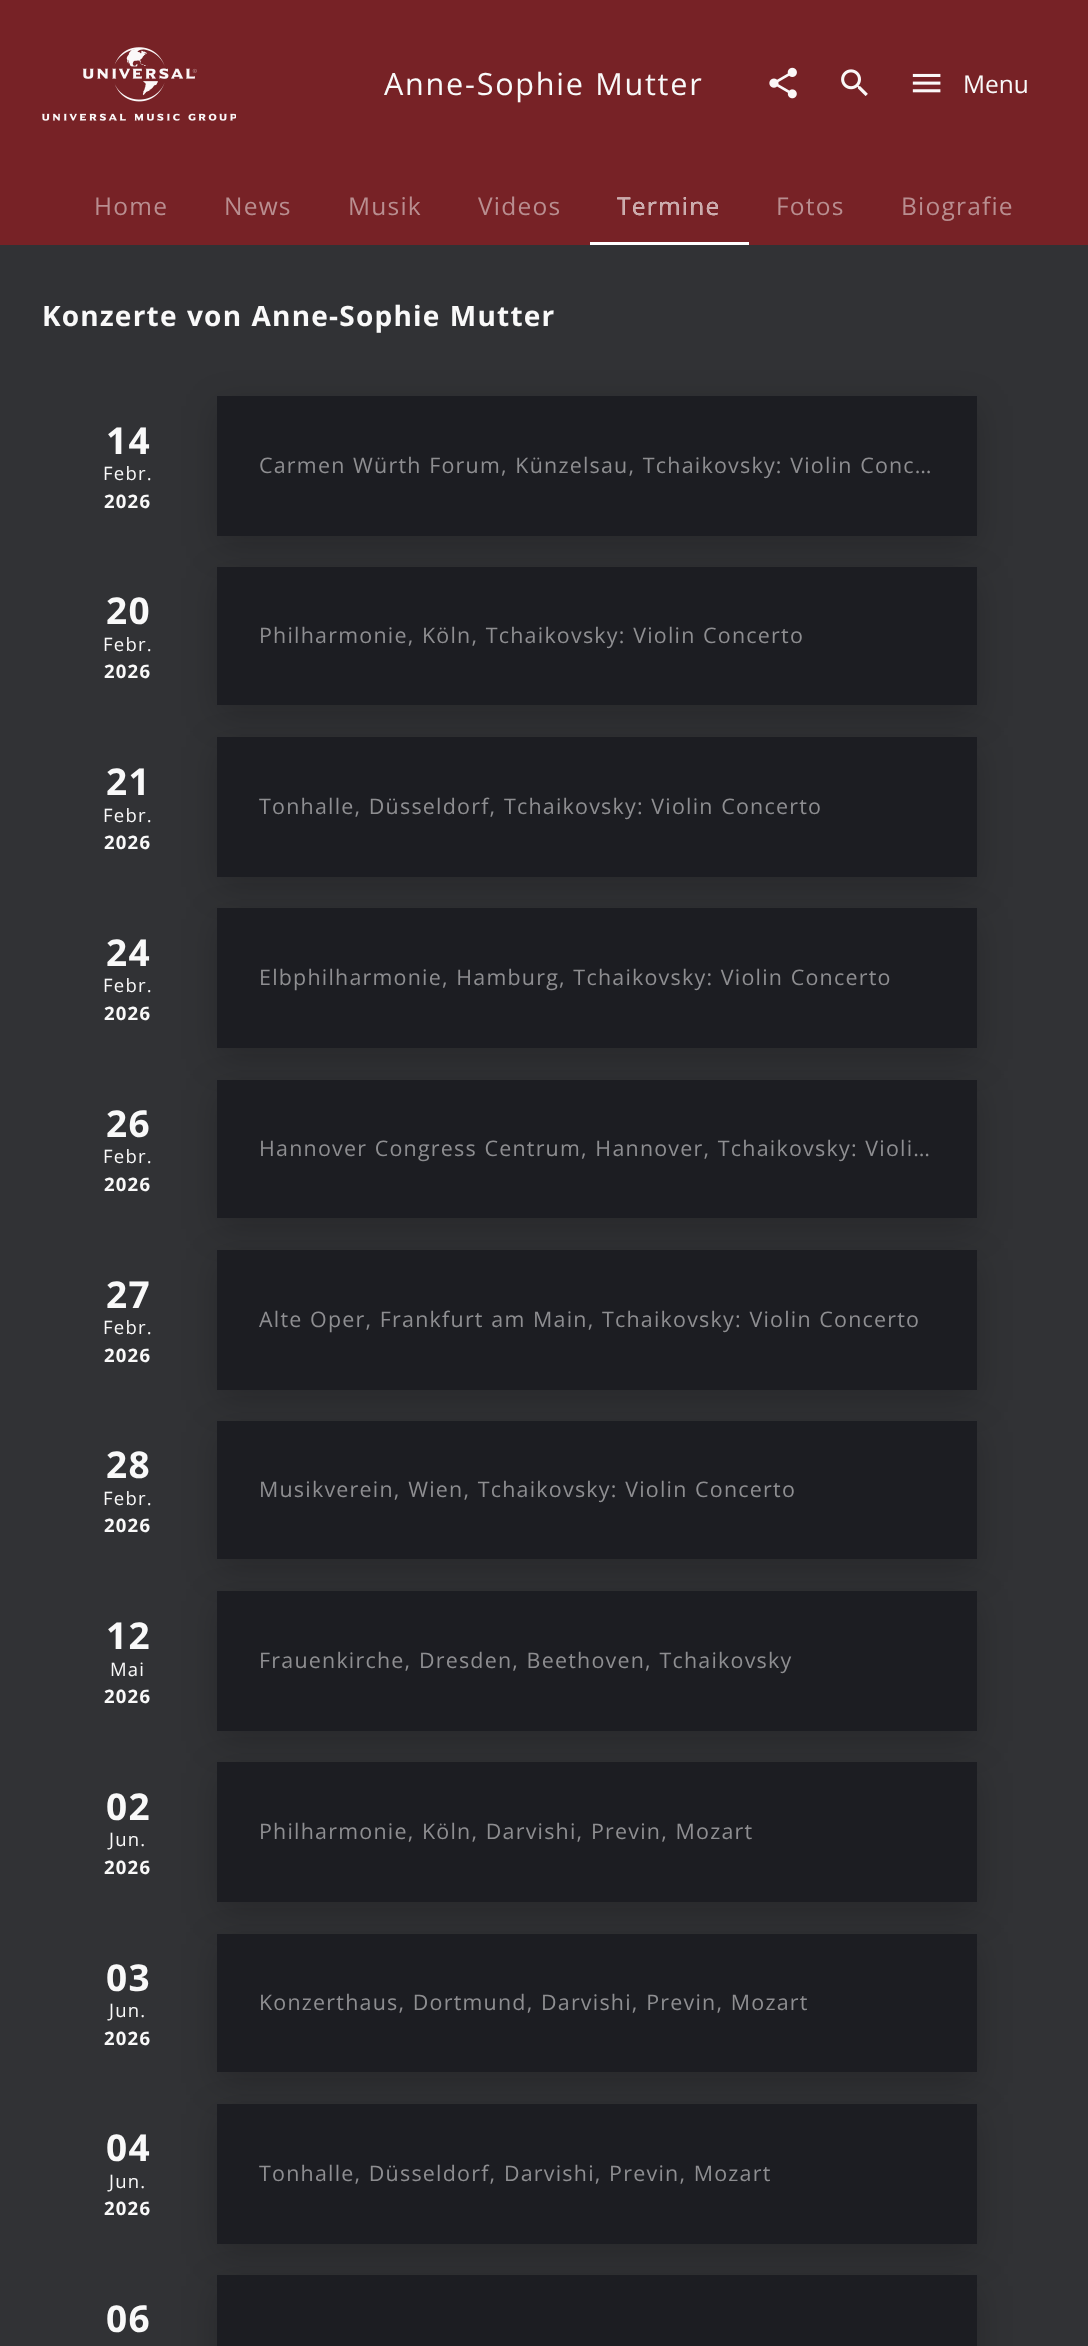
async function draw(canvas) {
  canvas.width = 1088
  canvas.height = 2346
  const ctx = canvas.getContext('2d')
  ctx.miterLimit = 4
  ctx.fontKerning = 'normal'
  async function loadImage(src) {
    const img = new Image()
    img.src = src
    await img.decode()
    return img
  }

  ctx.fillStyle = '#313235'
  ctx.fillRect(0, 0, 1088, 2346)
  ctx.fillStyle = '#772226'
  ctx.fillRect(0, 0, 1088, 245)
  ctx.drawImage(await loadImage('image0.png'), 42, 47, 194, 74)
  ctx.letterSpacing = '1.75px'
  ctx.wordSpacing = '0.75px'
  ctx.font = '30.6px Open Sans'
  ctx.fillStyle = '#f9f9f9'
  ctx.fillText('Anne-Sophie Mutter', 384, 95)
  ctx.drawImage(await loadImage('image1.png'), 769, 67, 28, 32)
  ctx.drawImage(await loadImage('image2.png'), 841, 69, 27, 27)
  ctx.drawImage(await loadImage('image3.png'), 912, 73, 29, 20)
  ctx.letterSpacing = '0px'
  ctx.wordSpacing = '0px'
  ctx.font = '24.5px Open Sans'
  ctx.fillText('Menu', 963, 93)
  ctx.letterSpacing = '1.22px'
  ctx.fillStyle = '#b98e90'
  ctx.fillText('Home', 94, 215)
  ctx.fillText('News', 224, 215)
  ctx.fillText('Musik', 348, 215)
  ctx.fillText('Videos', 478, 215)
  ctx.fillStyle = '#fff'
  ctx.fillRect(590, 242, 159, 3)
  ctx.fillStyle = '#f9f9f9'
  ctx.fillText('Termine', 617, 215)
  ctx.fillStyle = '#cbaaab'
  ctx.fillText('Termine', 617, 215)
  ctx.fillStyle = '#b98e90'
  ctx.fillText('Fotos', 776, 215)
  ctx.fillText('Biografie', 901, 215)
  ctx.wordSpacing = '0.75px'
  ctx.font = 'bold 28px Open Sans'
  ctx.fillStyle = '#f9f9f9'
  ctx.fillText('Konzerte von Anne-Sophie Mutter', 42, 326)
  ctx.wordSpacing = '0px'
  ctx.font = 'bold 37px Open Sans'
  ctx.fillText('14', 106, 454)
  ctx.font = '18.5px Open Sans'
  ctx.fillText('Febr.', 103, 480)
  ctx.font = 'bold 18.5px Open Sans'
  ctx.fillText('2026', 104, 508)
  ctx.fillStyle = '#00000030'
  ctx.filter = 'blur(17.5px)'
  ctx.beginPath()
  ctx.rect(217, 406, 760, 140)
  ctx.fill()
  ctx.filter = 'none'
  ctx.fillStyle = '#1c1d22'
  ctx.fillRect(217, 396, 760, 140)
  ctx.wordSpacing = '0.75px'
  ctx.font = '21.45px Open Sans'
  ctx.fillStyle = '#8e8e91'
  ctx.fillText('Carmen Würth Forum, Künzelsau, Tchaikovsky: Violin Conc…', 259, 473)
  ctx.wordSpacing = '0px'
  ctx.font = 'bold 37px Open Sans'
  ctx.fillStyle = '#f9f9f9'
  ctx.fillText('20', 106, 624)
  ctx.font = '18.5px Open Sans'
  ctx.fillText('Febr.', 103, 651)
  ctx.font = 'bold 18.5px Open Sans'
  ctx.fillText('2026', 104, 678)
  ctx.fillStyle = '#00000030'
  ctx.filter = 'blur(17.5px)'
  ctx.beginPath()
  ctx.rect(217, 578, 760, 138)
  ctx.fill()
  ctx.filter = 'none'
  ctx.fillStyle = '#1c1d22'
  ctx.fillRect(217, 567, 760, 138)
  ctx.wordSpacing = '0.75px'
  ctx.font = '21.45px Open Sans'
  ctx.fillStyle = '#8e8e91'
  ctx.fillText('Philharmonie, Köln, Tchaikovsky: Violin Concerto', 259, 643)
  ctx.wordSpacing = '0px'
  ctx.font = 'bold 37px Open Sans'
  ctx.fillStyle = '#f9f9f9'
  ctx.fillText('21', 106, 795)
  ctx.font = '18.5px Open Sans'
  ctx.fillText('Febr.', 103, 822)
  ctx.font = 'bold 18.5px Open Sans'
  ctx.fillText('2026', 104, 849)
  ctx.fillStyle = '#00000030'
  ctx.filter = 'blur(17.5px)'
  ctx.beginPath()
  ctx.rect(217, 747, 760, 140)
  ctx.fill()
  ctx.filter = 'none'
  ctx.fillStyle = '#1c1d22'
  ctx.fillRect(217, 737, 760, 140)
  ctx.wordSpacing = '0.75px'
  ctx.font = '21.45px Open Sans'
  ctx.fillStyle = '#8e8e91'
  ctx.fillText('Tonhalle, Düsseldorf, Tchaikovsky: Violin Concerto', 259, 814)
  ctx.wordSpacing = '0px'
  ctx.font = 'bold 37px Open Sans'
  ctx.fillStyle = '#f9f9f9'
  ctx.fillText('24', 106, 966)
  ctx.font = '18.5px Open Sans'
  ctx.fillText('Febr.', 103, 992)
  ctx.font = 'bold 18.5px Open Sans'
  ctx.fillText('2026', 104, 1020)
  ctx.fillStyle = '#00000030'
  ctx.filter = 'blur(17.5px)'
  ctx.beginPath()
  ctx.rect(217, 919, 760, 140)
  ctx.fill()
  ctx.filter = 'none'
  ctx.fillStyle = '#1c1d22'
  ctx.fillRect(217, 908, 760, 140)
  ctx.wordSpacing = '0.75px'
  ctx.font = '21.45px Open Sans'
  ctx.fillStyle = '#8e8e91'
  ctx.fillText('Elbphilharmonie, Hamburg, Tchaikovsky: Violin Concerto', 259, 985)
  ctx.wordSpacing = '0px'
  ctx.font = 'bold 37px Open Sans'
  ctx.fillStyle = '#f9f9f9'
  ctx.fillText('26', 106, 1137)
  ctx.font = '18.5px Open Sans'
  ctx.fillText('Febr.', 103, 1163)
  ctx.font = 'bold 18.5px Open Sans'
  ctx.fillText('2026', 104, 1191)
  ctx.fillStyle = '#00000030'
  ctx.filter = 'blur(17.5px)'
  ctx.beginPath()
  ctx.rect(217, 1090, 760, 139)
  ctx.fill()
  ctx.filter = 'none'
  ctx.fillStyle = '#1c1d22'
  ctx.fillRect(217, 1080, 760, 138)
  ctx.wordSpacing = '0.75px'
  ctx.font = '21.45px Open Sans'
  ctx.fillStyle = '#8e8e91'
  ctx.fillText('Hannover Congress Centrum, Hannover, Tchaikovsky: Violi…', 259, 1156)
  ctx.wordSpacing = '0px'
  ctx.font = 'bold 37px Open Sans'
  ctx.fillStyle = '#f9f9f9'
  ctx.fillText('27', 106, 1308)
  ctx.font = '18.5px Open Sans'
  ctx.fillText('Febr.', 103, 1334)
  ctx.font = 'bold 18.5px Open Sans'
  ctx.fillText('2026', 104, 1362)
  ctx.fillStyle = '#00000030'
  ctx.filter = 'blur(17.5px)'
  ctx.beginPath()
  ctx.rect(217, 1260, 760, 140)
  ctx.fill()
  ctx.filter = 'none'
  ctx.fillStyle = '#1c1d22'
  ctx.fillRect(217, 1250, 760, 140)
  ctx.wordSpacing = '0.75px'
  ctx.font = '21.45px Open Sans'
  ctx.fillStyle = '#8e8e91'
  ctx.fillText('Alte Oper, Frankfurt am Main, Tchaikovsky: Violin Concerto', 259, 1327)
  ctx.wordSpacing = '0px'
  ctx.font = 'bold 37px Open Sans'
  ctx.fillStyle = '#f9f9f9'
  ctx.fillText('28', 106, 1478)
  ctx.font = '18.5px Open Sans'
  ctx.fillText('Febr.', 103, 1505)
  ctx.font = 'bold 18.5px Open Sans'
  ctx.fillText('2026', 104, 1532)
  ctx.fillStyle = '#00000030'
  ctx.filter = 'blur(17.5px)'
  ctx.beginPath()
  ctx.rect(217, 1432, 760, 138)
  ctx.fill()
  ctx.filter = 'none'
  ctx.fillStyle = '#1c1d22'
  ctx.fillRect(217, 1421, 760, 138)
  ctx.wordSpacing = '0.75px'
  ctx.font = '21.45px Open Sans'
  ctx.fillStyle = '#8e8e91'
  ctx.fillText('Musikverein, Wien, Tchaikovsky: Violin Concerto', 259, 1497)
  ctx.wordSpacing = '0px'
  ctx.font = 'bold 37px Open Sans'
  ctx.fillStyle = '#f9f9f9'
  ctx.fillText('12', 106, 1649)
  ctx.font = '18.5px Open Sans'
  ctx.fillText('Mai', 110, 1676)
  ctx.font = 'bold 18.5px Open Sans'
  ctx.fillText('2026', 104, 1703)
  ctx.fillStyle = '#00000030'
  ctx.filter = 'blur(17.5px)'
  ctx.beginPath()
  ctx.rect(217, 1601, 760, 140)
  ctx.fill()
  ctx.filter = 'none'
  ctx.fillStyle = '#1c1d22'
  ctx.fillRect(217, 1591, 760, 140)
  ctx.wordSpacing = '0.75px'
  ctx.font = '21.45px Open Sans'
  ctx.fillStyle = '#8e8e91'
  ctx.fillText('Frauenkirche, Dresden, Beethoven, Tchaikovsky', 259, 1668)
  ctx.wordSpacing = '0px'
  ctx.font = 'bold 37px Open Sans'
  ctx.fillStyle = '#f9f9f9'
  ctx.fillText('02', 106, 1820)
  ctx.font = '18.5px Open Sans'
  ctx.fillText('Jun.', 109, 1846)
  ctx.font = 'bold 18.5px Open Sans'
  ctx.fillText('2026', 104, 1874)
  ctx.fillStyle = '#00000030'
  ctx.filter = 'blur(17.5px)'
  ctx.beginPath()
  ctx.rect(217, 1773, 760, 140)
  ctx.fill()
  ctx.filter = 'none'
  ctx.fillStyle = '#1c1d22'
  ctx.fillRect(217, 1762, 760, 140)
  ctx.wordSpacing = '0.75px'
  ctx.font = '21.45px Open Sans'
  ctx.fillStyle = '#8e8e91'
  ctx.fillText('Philharmonie, Köln, Darvishi, Previn, Mozart', 259, 1839)
  ctx.wordSpacing = '0px'
  ctx.font = 'bold 37px Open Sans'
  ctx.fillStyle = '#f9f9f9'
  ctx.fillText('03', 106, 1991)
  ctx.font = '18.5px Open Sans'
  ctx.fillText('Jun.', 109, 2017)
  ctx.font = 'bold 18.5px Open Sans'
  ctx.fillText('2026', 104, 2045)
  ctx.fillStyle = '#00000030'
  ctx.filter = 'blur(17.5px)'
  ctx.beginPath()
  ctx.rect(217, 1944, 760, 139)
  ctx.fill()
  ctx.filter = 'none'
  ctx.fillStyle = '#1c1d22'
  ctx.fillRect(217, 1934, 760, 138)
  ctx.wordSpacing = '0.75px'
  ctx.font = '21.45px Open Sans'
  ctx.fillStyle = '#8e8e91'
  ctx.fillText('Konzerthaus, Dortmund, Darvishi, Previn, Mozart', 259, 2010)
  ctx.wordSpacing = '0px'
  ctx.font = 'bold 37px Open Sans'
  ctx.fillStyle = '#f9f9f9'
  ctx.fillText('04', 106, 2161)
  ctx.font = '18.5px Open Sans'
  ctx.fillText('Jun.', 109, 2188)
  ctx.font = 'bold 18.5px Open Sans'
  ctx.fillText('2026', 104, 2215)
  ctx.fillStyle = '#00000030'
  ctx.filter = 'blur(17.5px)'
  ctx.beginPath()
  ctx.rect(217, 2114, 760, 140)
  ctx.fill()
  ctx.filter = 'none'
  ctx.fillStyle = '#1c1d22'
  ctx.fillRect(217, 2104, 760, 140)
  ctx.wordSpacing = '0.75px'
  ctx.font = '21.45px Open Sans'
  ctx.fillStyle = '#8e8e91'
  ctx.fillText('Tonhalle, Düsseldorf, Darvishi, Previn, Mozart', 259, 2181)
  ctx.wordSpacing = '0px'
  ctx.font = 'bold 37px Open Sans'
  ctx.fillStyle = '#f9f9f9'
  ctx.fillText('06', 106, 2332)
  ctx.fillStyle = '#00000030'
  ctx.filter = 'blur(17.5px)'
  ctx.beginPath()
  ctx.rect(217, 2286, 760, 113)
  ctx.fill()
  ctx.filter = 'none'
  ctx.fillStyle = '#1c1d22'
  ctx.fillRect(217, 2275, 760, 71)
}

draw(document.querySelector('canvas'))
